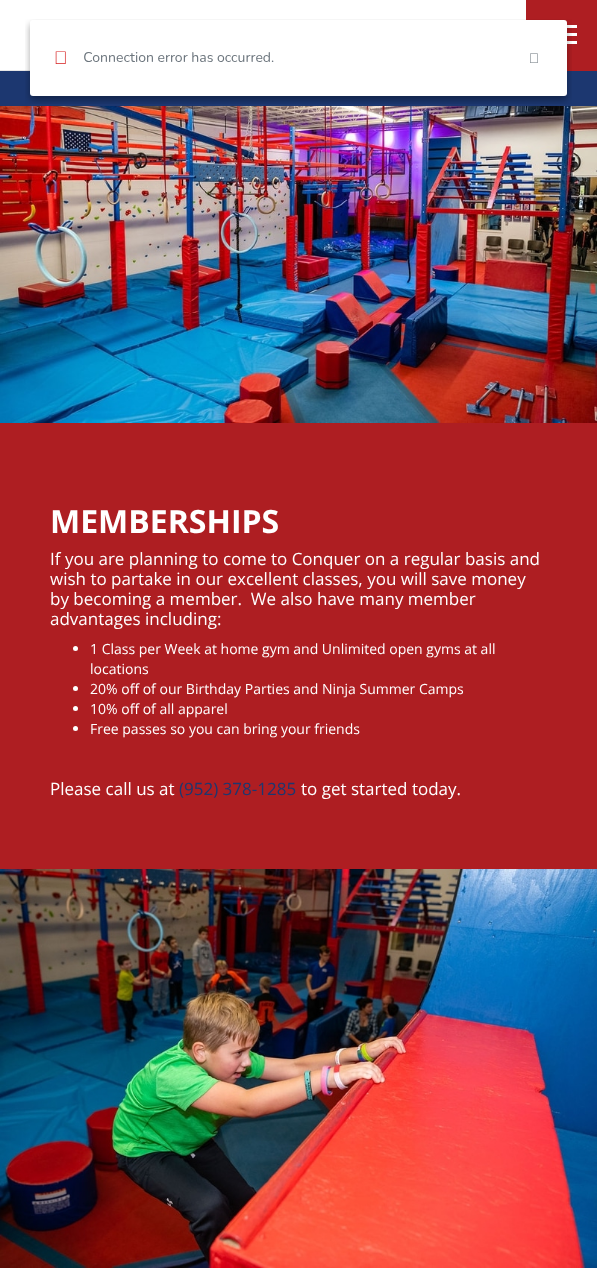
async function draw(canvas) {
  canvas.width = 597
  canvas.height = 1269
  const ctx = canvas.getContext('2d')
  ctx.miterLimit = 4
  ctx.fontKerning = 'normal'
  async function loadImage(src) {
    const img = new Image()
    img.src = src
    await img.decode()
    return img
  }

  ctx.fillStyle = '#fff'
  ctx.fillRect(0, 0, 597, 1269)
  ctx.fillStyle = '#e6e6e6'
  ctx.fillRect(0, 70, 30, 1)
  ctx.fillStyle = '#ae1e22'
  ctx.fillRect(526, 0, 71, 71)
  ctx.fillStyle = '#fff'
  ctx.fillRect(567, 25, 10, 3)
  ctx.fillRect(567, 33, 10, 3)
  ctx.fillRect(567, 41, 10, 3)
  ctx.fillStyle = '#1c3770'
  ctx.fillRect(0, 71, 597, 35)
  ctx.drawImage(await loadImage('image0.png'), 25, 19, 547, 85)
  ctx.drawImage(await loadImage('image1.png'), 0, 106, 597, 317)
  ctx.fillStyle = '#ae1e22'
  ctx.fillRect(0, 423, 597, 446)
  ctx.font = 'bold 32px Open Sans'
  ctx.fillStyle = '#fff'
  ctx.fillText('MEMBERSHIPS', 50, 533)
  ctx.font = '17px Open Sans'
  ctx.fillText('If you are planning to come to Conquer on a regular basis and', 50, 565)
  ctx.fillText('wish to partake in our excellent classes, you will save money', 50, 585)
  ctx.fillText('by becoming a member.  We also have many member', 50, 605)
  ctx.fillText('advantages including:', 50, 625)
  ctx.beginPath()
  ctx.arc(75.5, 648.5, 2.5, 0, 2 * Math.PI)
  ctx.fill()
  ctx.font = '14px Open Sans'
  ctx.fillText('1 Class per Week at home gym and Unlimited open gyms at all', 90, 654)
  ctx.fillText('locations', 90, 674)
  ctx.beginPath()
  ctx.arc(75.5, 688.5, 2.5, 0, 2 * Math.PI)
  ctx.fill()
  ctx.fillText('20% off of our Birthday Parties and Ninja Summer Camps', 90, 694)
  ctx.beginPath()
  ctx.arc(75.5, 708.5, 2.5, 0, 2 * Math.PI)
  ctx.fill()
  ctx.fillText('‍10% off of all apparel', 90, 714)
  ctx.beginPath()
  ctx.arc(75.5, 728.5, 2.5, 0, 2 * Math.PI)
  ctx.fill()
  ctx.fillText('‍Free passes so you can bring your friends', 90, 734)
  ctx.font = '17px Open Sans'
  ctx.fillText('Please call us at', 50, 795)
  ctx.fillStyle = '#1c3770'
  ctx.fillText('(952) 378-1285', 179, 795)
  ctx.fillStyle = '#fff'
  ctx.fillText('to get started today.', 301, 795)
  ctx.drawImage(await loadImage('image2.png'), 0, 869, 597, 399)
}

draw(document.querySelector('canvas'))
